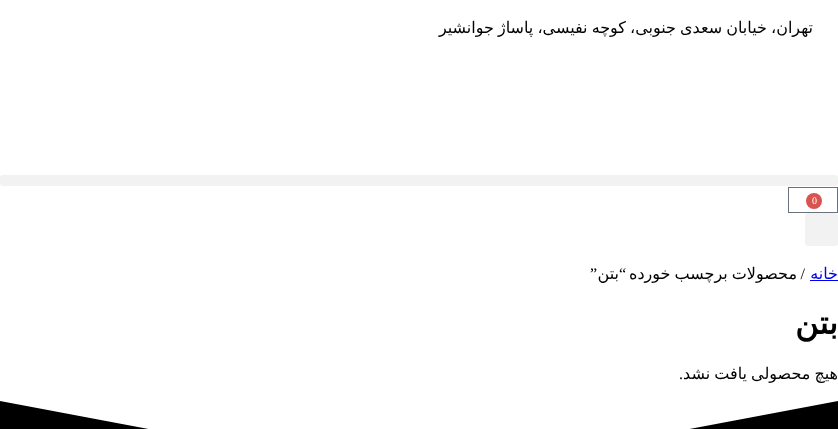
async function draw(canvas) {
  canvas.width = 838
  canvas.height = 429
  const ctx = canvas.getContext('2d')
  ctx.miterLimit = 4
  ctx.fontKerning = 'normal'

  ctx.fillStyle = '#fff'
  ctx.fillRect(0, 0, 838, 429)
  ctx.wordSpacing = '-1px'
  ctx.direction = 'rtl'
  ctx.font = '16px DejaVu Sans'
  ctx.fillStyle = '#000'
  ctx.fillText('تهران، خیابان سعدی جنوبی، کوچه نفیسی، پاساژ جوانشیر', 813, 33)
  ctx.fillStyle = '#f2f2f2'
  ctx.beginPath()
  ctx.roundRect(0, 175, 838, 11, 3)
  ctx.fill()
  ctx.strokeStyle = '#69727d'
  ctx.strokeRect(788.5, 187.5, 49, 25)
  ctx.fillStyle = '#d9534f'
  ctx.beginPath()
  ctx.arc(814, 201, 8, 0, 2 * Math.PI)
  ctx.fill()
  ctx.wordSpacing = '0px'
  ctx.direction = 'ltr'
  ctx.font = '10px Liberation Serif'
  ctx.fillStyle = '#fff'
  ctx.fillText('0', 812, 204)
  ctx.fillStyle = '#f2f2f2'
  ctx.beginPath()
  ctx.roundRect(805, 213, 33, 33, 3)
  ctx.fill()
  ctx.direction = 'rtl'
  ctx.font = '16px DejaVu Sans'
  ctx.fillStyle = '#00e'
  ctx.fillText('خانه', 838, 279)
  ctx.fillRect(810, 280, 28, 1)
  ctx.font = '16px Liberation Serif'
  ctx.fillStyle = '#000'
  ctx.fillText('/', 805, 279)
  ctx.wordSpacing = '-1px'
  ctx.font = '16px DejaVu Sans'
  ctx.fillText('محصولات برچسب خورده', 797, 279)
  ctx.wordSpacing = '0px'
  ctx.font = '16px Liberation Serif'
  ctx.fillText('“', 626, 279)
  ctx.font = '16px DejaVu Sans'
  ctx.fillText('بتن', 619, 279)
  ctx.font = '16px Liberation Serif'
  ctx.fillText('”', 597, 279)
  ctx.font = 'bold 32px DejaVu Sans'
  ctx.fillText('بتن', 838, 334)
  ctx.wordSpacing = '-1px'
  ctx.font = '16px DejaVu Sans'
  ctx.fillText('هیچ محصولی یافت نشد', 838, 379)
  ctx.wordSpacing = '0px'
  ctx.font = '16px Liberation Serif'
  ctx.fillText('.', 683, 379)
  ctx.beginPath()
  ctx.moveTo(419, 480)
  ctx.lineTo(0, 401)
  ctx.lineTo(0, 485)
  ctx.lineTo(838, 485)
  ctx.lineTo(838, 401)
  ctx.closePath()
  ctx.fill()
}

draw(document.querySelector('canvas'))
